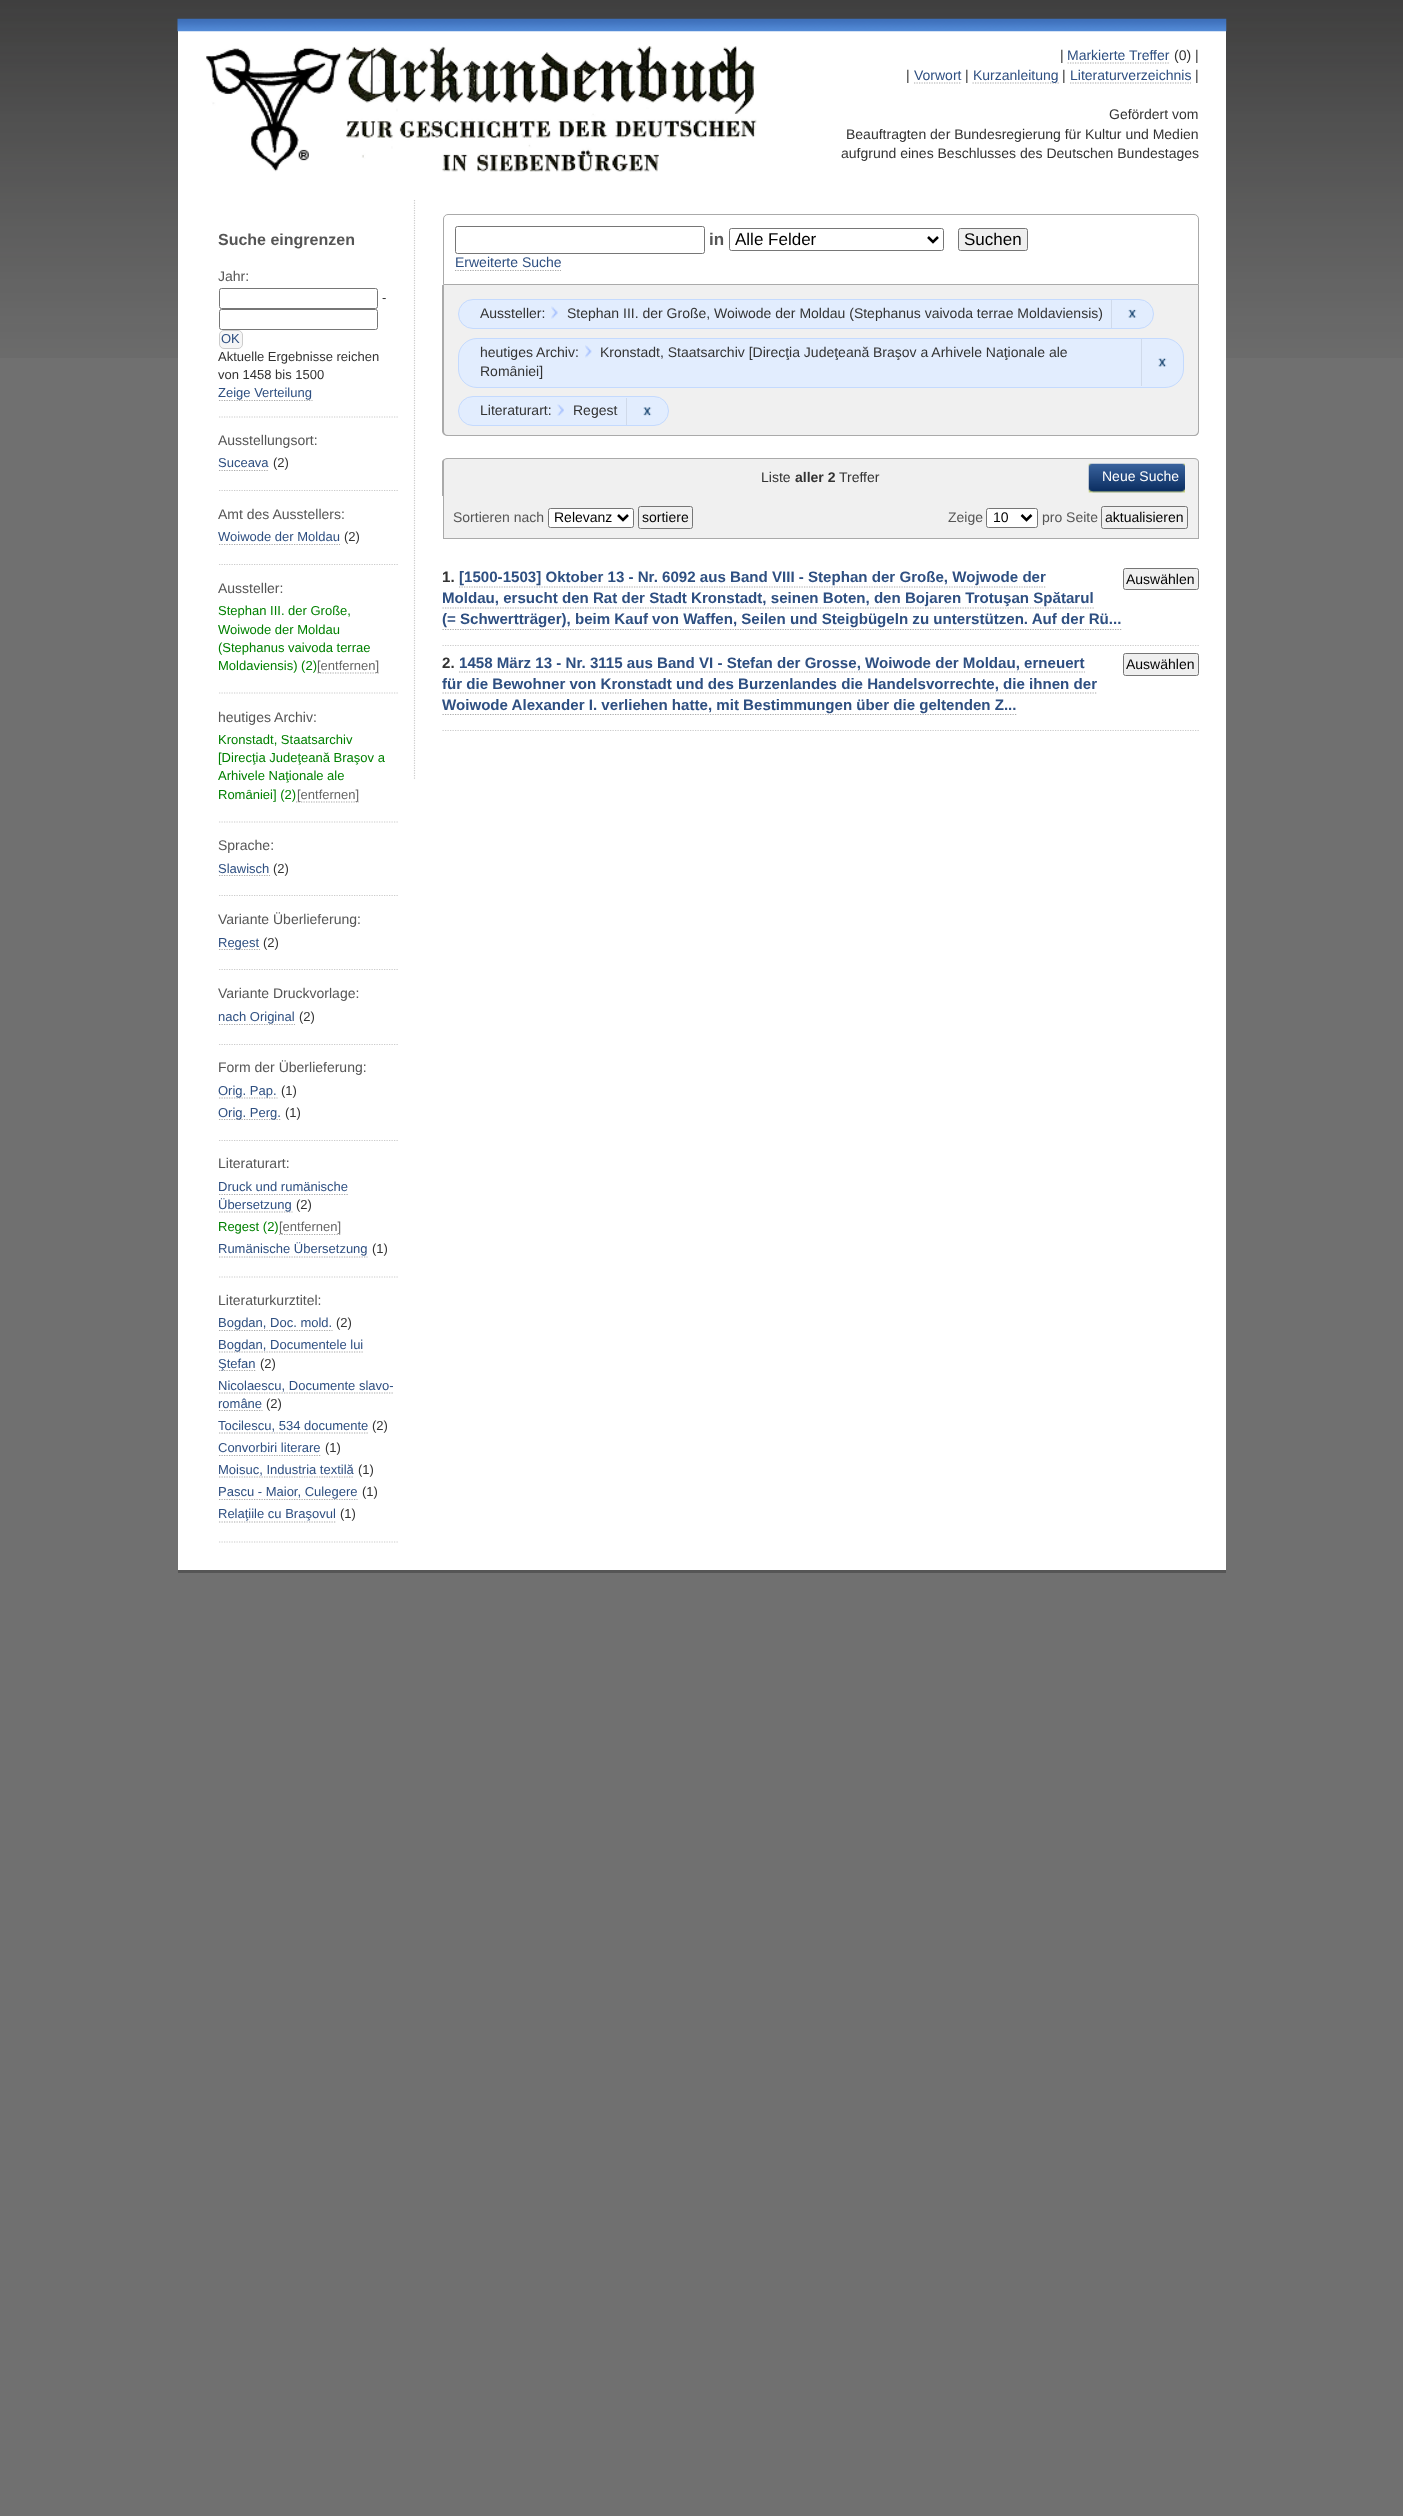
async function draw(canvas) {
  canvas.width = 1403
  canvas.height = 2516
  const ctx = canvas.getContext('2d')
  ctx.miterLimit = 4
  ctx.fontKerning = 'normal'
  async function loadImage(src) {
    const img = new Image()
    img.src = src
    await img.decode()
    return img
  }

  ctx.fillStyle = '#707070'
  ctx.fillRect(0, 0, 1403, 2516)
  ctx.drawImage(await loadImage('image0.png'), 0, 0, 1403, 358)
  ctx.fillStyle = '#fff'
  ctx.fillRect(178, 31, 1048, 1539)
  ctx.drawImage(await loadImage('image1.png'), 177, 18, 1050, 14)
  ctx.fillStyle = '#555'
  ctx.fillRect(178, 1570, 1048, 3)
  ctx.drawImage(await loadImage('image2.png'), 206, 46, 551, 126)
  ctx.font = '14px Liberation Sans'
  ctx.fillStyle = '#333'
  ctx.fillText('|', 1060, 60)
  ctx.fillStyle = '#2e4f81'
  ctx.fillText('Markierte Treffer', 1067, 60)
  ctx.beginPath()
  ctx.moveTo(1067.5, 63)
  ctx.lineTo(1170, 63)
  ctx.strokeStyle = '#aaa'
  ctx.lineWidth = 1.2
  ctx.setLineDash([1.25, 1.25])
  ctx.stroke()
  ctx.fillStyle = '#333'
  ctx.fillText('(0) |', 1174, 60)
  ctx.fillText('|', 906, 80)
  ctx.fillStyle = '#2e4f81'
  ctx.fillText('Vorwort', 914, 80)
  ctx.beginPath()
  ctx.moveTo(914, 83)
  ctx.lineTo(961, 83)
  ctx.stroke()
  ctx.fillStyle = '#333'
  ctx.fillText('|', 965, 80)
  ctx.beginPath()
  ctx.moveTo(972.5, 83)
  ctx.lineTo(1059, 83)
  ctx.stroke()
  ctx.fillStyle = '#2e4f81'
  ctx.fillText('Kurzanleitung', 973, 80)
  ctx.fillStyle = '#333'
  ctx.fillText('|', 1062, 80)
  ctx.fillStyle = '#2e4f81'
  ctx.fillText('Literaturverzeichnis', 1070, 80)
  ctx.beginPath()
  ctx.moveTo(1070, 83)
  ctx.lineTo(1191, 83)
  ctx.stroke()
  ctx.fillStyle = '#333'
  ctx.fillText('|', 1195, 80)
  ctx.fillText('Gefördert vom', 1109, 119)
  ctx.fillText('Beauftragten der Bundesregierung für Kultur und Medien', 846, 139)
  ctx.fillText('aufgrund eines Beschlusses des Deutschen Bundestages', 841, 158)
  ctx.font = 'bold 16px Liberation Sans'
  ctx.fillStyle = '#555'
  ctx.fillText('Suche eingrenzen', 218, 245)
  ctx.font = '14px Liberation Sans'
  ctx.fillText('Jahr:', 218, 281)
  ctx.beginPath()
  ctx.moveTo(219, 417)
  ctx.lineTo(399, 417)
  ctx.strokeStyle = '#ccc'
  ctx.stroke()
  ctx.beginPath()
  ctx.roundRect(219.5, 288.5, 158, 20, 2)
  ctx.strokeStyle = '#767676'
  ctx.lineWidth = 1
  ctx.setLineDash([])
  ctx.stroke()
  ctx.font = '13px Liberation Sans'
  ctx.fillStyle = '#333'
  ctx.fillText('-', 382, 302)
  ctx.beginPath()
  ctx.roundRect(219.5, 309.5, 158, 20, 2)
  ctx.stroke()
  ctx.fillStyle = '#f6f6f6'
  ctx.beginPath()
  ctx.roundRect(219.5, 330.5, 23, 18, 4.5)
  ctx.fill()
  ctx.strokeStyle = '#ccc'
  ctx.stroke()
  ctx.fillStyle = '#2e4f81'
  ctx.fillText('OK', 221, 343)
  ctx.fillStyle = '#333'
  ctx.fillText('Aktuelle Ergebnisse reichen', 218, 361)
  ctx.fillText('von 1458 bis 1500', 218, 379)
  ctx.beginPath()
  ctx.moveTo(219, 400.5)
  ctx.lineTo(312.5, 400.5)
  ctx.strokeStyle = '#aaa'
  ctx.lineWidth = 1.2
  ctx.setLineDash([1.25, 1.25])
  ctx.stroke()
  ctx.fillStyle = '#2e4f81'
  ctx.fillText('Zeige Verteilung', 218, 397)
  ctx.font = '14px Liberation Sans'
  ctx.fillStyle = '#555'
  ctx.fillText('Ausstellungsort:', 218, 445)
  ctx.beginPath()
  ctx.moveTo(219, 490.5)
  ctx.lineTo(399, 490.5)
  ctx.strokeStyle = '#ccc'
  ctx.stroke()
  ctx.font = '13px Liberation Sans'
  ctx.fillStyle = '#2e4f81'
  ctx.fillText('Suceava', 218, 467)
  ctx.beginPath()
  ctx.moveTo(219, 470.5)
  ctx.lineTo(269, 470.5)
  ctx.strokeStyle = '#aaa'
  ctx.stroke()
  ctx.fillStyle = '#333'
  ctx.fillText('(2)', 273, 467)
  ctx.font = '14px Liberation Sans'
  ctx.fillStyle = '#555'
  ctx.fillText('Amt des Ausstellers:', 218, 519)
  ctx.beginPath()
  ctx.moveTo(219, 564.5)
  ctx.lineTo(399, 564.5)
  ctx.strokeStyle = '#ccc'
  ctx.stroke()
  ctx.font = '13px Liberation Sans'
  ctx.fillStyle = '#2e4f81'
  ctx.fillText('Woiwode der Moldau', 218, 541)
  ctx.beginPath()
  ctx.moveTo(219, 544.5)
  ctx.lineTo(340, 544.5)
  ctx.strokeStyle = '#aaa'
  ctx.stroke()
  ctx.fillStyle = '#333'
  ctx.fillText('(2)', 344, 541)
  ctx.font = '14px Liberation Sans'
  ctx.fillStyle = '#555'
  ctx.fillText('Aussteller:', 218, 593)
  ctx.beginPath()
  ctx.moveTo(219, 693)
  ctx.lineTo(399, 693)
  ctx.strokeStyle = '#ccc'
  ctx.stroke()
  ctx.font = '13px Liberation Sans'
  ctx.fillStyle = '#008000'
  ctx.fillText('Stephan III. der Große,', 218, 615)
  ctx.fillText('Woiwode der Moldau', 218, 634)
  ctx.fillText('(Stephanus vaivoda terrae', 218, 652)
  ctx.fillText('Moldaviensis) (2)', 218, 670)
  ctx.beginPath()
  ctx.moveTo(317.5, 673)
  ctx.lineTo(380, 673)
  ctx.strokeStyle = '#aaa'
  ctx.stroke()
  ctx.fillStyle = '#666'
  ctx.fillText('[entfernen]', 317, 670)
  ctx.font = '14px Liberation Sans'
  ctx.fillStyle = '#555'
  ctx.fillText('heutiges Archiv:', 218, 722)
  ctx.beginPath()
  ctx.moveTo(219, 822)
  ctx.lineTo(399, 822)
  ctx.strokeStyle = '#ccc'
  ctx.stroke()
  ctx.font = '13px Liberation Sans'
  ctx.fillStyle = '#008000'
  ctx.fillText('Kronstadt, Staatsarchiv', 218, 744)
  ctx.fillText('[Direcţia Judeţeană Braşov a', 218, 762)
  ctx.fillText('Arhivele Naţionale ale', 218, 780)
  ctx.fillText('Romȃniei] (2)', 218, 799)
  ctx.beginPath()
  ctx.moveTo(296, 802)
  ctx.lineTo(359, 802)
  ctx.strokeStyle = '#aaa'
  ctx.stroke()
  ctx.fillStyle = '#666'
  ctx.fillText('[entfernen]', 297, 799)
  ctx.font = '14px Liberation Sans'
  ctx.fillStyle = '#555'
  ctx.fillText('Sprache:', 218, 850)
  ctx.beginPath()
  ctx.moveTo(219, 895.5)
  ctx.lineTo(399, 895.5)
  ctx.strokeStyle = '#ccc'
  ctx.stroke()
  ctx.font = '13px Liberation Sans'
  ctx.fillStyle = '#2e4f81'
  ctx.fillText('Slawisch', 218, 873)
  ctx.beginPath()
  ctx.moveTo(219, 875.5)
  ctx.lineTo(270, 875.5)
  ctx.strokeStyle = '#aaa'
  ctx.stroke()
  ctx.fillStyle = '#333'
  ctx.fillText('(2)', 273, 873)
  ctx.font = '14px Liberation Sans'
  ctx.fillStyle = '#555'
  ctx.fillText('Variante Überlieferung:', 218, 924)
  ctx.beginPath()
  ctx.moveTo(219, 969.5)
  ctx.lineTo(399, 969.5)
  ctx.strokeStyle = '#ccc'
  ctx.stroke()
  ctx.beginPath()
  ctx.moveTo(219, 949.5)
  ctx.lineTo(260, 949.5)
  ctx.strokeStyle = '#aaa'
  ctx.stroke()
  ctx.font = '13px Liberation Sans'
  ctx.fillStyle = '#2e4f81'
  ctx.fillText('Regest', 218, 947)
  ctx.fillStyle = '#333'
  ctx.fillText('(2)', 263, 947)
  ctx.font = '14px Liberation Sans'
  ctx.fillStyle = '#555'
  ctx.fillText('Variante Druckvorlage:', 218, 998)
  ctx.beginPath()
  ctx.moveTo(219, 1044.5)
  ctx.lineTo(399, 1044.5)
  ctx.strokeStyle = '#ccc'
  ctx.stroke()
  ctx.beginPath()
  ctx.moveTo(219, 1024.5)
  ctx.lineTo(295, 1024.5)
  ctx.strokeStyle = '#aaa'
  ctx.stroke()
  ctx.font = '13px Liberation Sans'
  ctx.fillStyle = '#2e4f81'
  ctx.fillText('nach Original', 218, 1021)
  ctx.fillStyle = '#333'
  ctx.fillText('(2)', 299, 1021)
  ctx.font = '14px Liberation Sans'
  ctx.fillStyle = '#555'
  ctx.fillText('Form der Überlieferung:', 218, 1072)
  ctx.beginPath()
  ctx.moveTo(219, 1140.5)
  ctx.lineTo(399, 1140.5)
  ctx.strokeStyle = '#ccc'
  ctx.stroke()
  ctx.beginPath()
  ctx.moveTo(219, 1098)
  ctx.lineTo(277.5, 1098)
  ctx.strokeStyle = '#aaa'
  ctx.stroke()
  ctx.font = '13px Liberation Sans'
  ctx.fillStyle = '#2e4f81'
  ctx.fillText('Orig. Pap.', 218, 1095)
  ctx.fillStyle = '#333'
  ctx.fillText('(1)', 281, 1095)
  ctx.beginPath()
  ctx.moveTo(219, 1119.5)
  ctx.lineTo(281, 1119.5)
  ctx.stroke()
  ctx.fillStyle = '#2e4f81'
  ctx.fillText('Orig. Perg.', 218, 1117)
  ctx.fillStyle = '#333'
  ctx.fillText('(1)', 285, 1117)
  ctx.font = '14px Liberation Sans'
  ctx.fillStyle = '#555'
  ctx.fillText('Literaturart:', 218, 1168)
  ctx.beginPath()
  ctx.moveTo(219, 1277)
  ctx.lineTo(399, 1277)
  ctx.strokeStyle = '#ccc'
  ctx.stroke()
  ctx.font = '13px Liberation Sans'
  ctx.fillStyle = '#2e4f81'
  ctx.fillText('Druck und rumänische', 218, 1191)
  ctx.beginPath()
  ctx.moveTo(219, 1194.5)
  ctx.lineTo(349, 1194.5)
  ctx.strokeStyle = '#aaa'
  ctx.stroke()
  ctx.beginPath()
  ctx.moveTo(219, 1212)
  ctx.lineTo(292.5, 1212)
  ctx.stroke()
  ctx.fillText('Übersetzung', 218, 1209)
  ctx.fillStyle = '#333'
  ctx.fillText('(2)', 296, 1209)
  ctx.fillStyle = '#008000'
  ctx.fillText('Regest (2)', 218, 1231)
  ctx.beginPath()
  ctx.moveTo(279, 1234.5)
  ctx.lineTo(341, 1234.5)
  ctx.stroke()
  ctx.fillStyle = '#666'
  ctx.fillText('[entfernen]', 279, 1231)
  ctx.fillStyle = '#2e4f81'
  ctx.fillText('Rumänische Übersetzung', 218, 1253)
  ctx.beginPath()
  ctx.moveTo(219, 1257)
  ctx.lineTo(367.5, 1257)
  ctx.stroke()
  ctx.fillStyle = '#333'
  ctx.fillText('(1)', 372, 1253)
  ctx.font = '14px Liberation Sans'
  ctx.fillStyle = '#555'
  ctx.fillText('Literaturkurztitel:', 218, 1305)
  ctx.beginPath()
  ctx.moveTo(219, 1542)
  ctx.lineTo(399, 1542)
  ctx.strokeStyle = '#ccc'
  ctx.stroke()
  ctx.beginPath()
  ctx.moveTo(219, 1330.5)
  ctx.lineTo(332.5, 1330.5)
  ctx.strokeStyle = '#aaa'
  ctx.stroke()
  ctx.font = '13px Liberation Sans'
  ctx.fillStyle = '#2e4f81'
  ctx.fillText('Bogdan, Doc. mold.', 218, 1327)
  ctx.fillStyle = '#333'
  ctx.fillText('(2)', 336, 1327)
  ctx.beginPath()
  ctx.moveTo(219, 1352)
  ctx.lineTo(364, 1352)
  ctx.stroke()
  ctx.fillStyle = '#2e4f81'
  ctx.fillText('Bogdan, Documentele lui', 218, 1349)
  ctx.beginPath()
  ctx.moveTo(219, 1370.5)
  ctx.lineTo(256, 1370.5)
  ctx.stroke()
  ctx.fillText('Ştefan', 218, 1368)
  ctx.fillStyle = '#333'
  ctx.fillText('(2)', 260, 1368)
  ctx.fillStyle = '#2e4f81'
  ctx.fillText('Nicolaescu, Documente slavo-', 218, 1390)
  ctx.beginPath()
  ctx.moveTo(219, 1393)
  ctx.lineTo(394, 1393)
  ctx.stroke()
  ctx.fillText('române', 218, 1408)
  ctx.beginPath()
  ctx.moveTo(219, 1410.5)
  ctx.lineTo(262.5, 1410.5)
  ctx.stroke()
  ctx.fillStyle = '#333'
  ctx.fillText('(2)', 266, 1408)
  ctx.fillStyle = '#2e4f81'
  ctx.fillText('Tocilescu, 534 documente', 218, 1430)
  ctx.beginPath()
  ctx.moveTo(219, 1433)
  ctx.lineTo(369, 1433)
  ctx.stroke()
  ctx.fillStyle = '#333'
  ctx.fillText('(2)', 372, 1430)
  ctx.fillStyle = '#2e4f81'
  ctx.fillText('Convorbiri literare', 218, 1452)
  ctx.beginPath()
  ctx.moveTo(219, 1455.5)
  ctx.lineTo(321, 1455.5)
  ctx.stroke()
  ctx.fillStyle = '#333'
  ctx.fillText('(1)', 325, 1452)
  ctx.fillStyle = '#2e4f81'
  ctx.fillText('Moisuc, Industria textilă', 218, 1474)
  ctx.beginPath()
  ctx.moveTo(219, 1477)
  ctx.lineTo(354, 1477)
  ctx.stroke()
  ctx.fillStyle = '#333'
  ctx.fillText('(1)', 358, 1474)
  ctx.beginPath()
  ctx.moveTo(219, 1499.5)
  ctx.lineTo(357.5, 1499.5)
  ctx.stroke()
  ctx.fillStyle = '#2e4f81'
  ctx.fillText('Pascu - Maior, Culegere', 218, 1496)
  ctx.fillStyle = '#333'
  ctx.fillText('(1)', 362, 1496)
  ctx.fillStyle = '#2e4f81'
  ctx.fillText('Relaţiile cu Braşovul', 218, 1518)
  ctx.beginPath()
  ctx.moveTo(219, 1522)
  ctx.lineTo(336, 1522)
  ctx.stroke()
  ctx.fillStyle = '#333'
  ctx.fillText('(1)', 340, 1518)
  ctx.beginPath()
  ctx.moveTo(414.5, 200)
  ctx.lineTo(414.5, 780)
  ctx.strokeStyle = '#ccc'
  ctx.stroke()
  ctx.beginPath()
  ctx.roundRect(443.5, 214.5, 755, 70, [4.5, 4.5, 0, 0])
  ctx.strokeStyle = '#aaa'
  ctx.lineWidth = 1
  ctx.setLineDash([])
  ctx.stroke()
  ctx.beginPath()
  ctx.roundRect(455.5, 226.5, 249, 27, 2)
  ctx.strokeStyle = '#767676'
  ctx.stroke()
  ctx.font = 'bold 17px Liberation Sans'
  ctx.fillStyle = '#555'
  ctx.fillText('in', 709, 245)
  ctx.beginPath()
  ctx.roundRect(729.5, 228.5, 214, 22, 2)
  ctx.stroke()
  ctx.beginPath()
  ctx.moveTo(928, 237)
  ctx.lineTo(933, 242)
  ctx.lineTo(938, 237)
  ctx.strokeStyle = '#000'
  ctx.lineWidth = 2.5
  ctx.stroke()
  ctx.font = '17px Liberation Sans'
  ctx.fillStyle = '#000'
  ctx.fillText('Alle Felder', 735, 245)
  ctx.fillStyle = '#efefef'
  ctx.beginPath()
  ctx.roundRect(958.5, 228.5, 69, 22, 2)
  ctx.fill()
  ctx.strokeStyle = '#767676'
  ctx.lineWidth = 1
  ctx.stroke()
  ctx.fillStyle = '#000'
  ctx.fillText('Suchen', 964, 245)
  ctx.font = '14px Liberation Sans'
  ctx.fillStyle = '#2e4f81'
  ctx.fillText('Erweiterte Suche', 455, 267)
  ctx.beginPath()
  ctx.moveTo(455, 270.5)
  ctx.lineTo(561, 270.5)
  ctx.strokeStyle = '#aaa'
  ctx.lineWidth = 1.2
  ctx.setLineDash([1.25, 1.25])
  ctx.stroke()
  ctx.fillStyle = '#f0f0f0'
  ctx.beginPath()
  ctx.roundRect(443, 285, 756, 151, [0, 0, 5, 5])
  ctx.fill()
  ctx.fillStyle = '#aaa'
  ctx.beginPath()
  ctx.moveTo(442, 285)
  ctx.lineTo(1199, 285)
  ctx.lineTo(1199, 431)
  ctx.bezierCurveTo(1199, 434, 1197, 436, 1194, 436)
  ctx.lineTo(448, 436)
  ctx.bezierCurveTo(445, 436, 442, 434, 442, 431)
  ctx.closePath()
  ctx.moveTo(444, 285)
  ctx.lineTo(1198, 285)
  ctx.lineTo(1198, 431)
  ctx.bezierCurveTo(1198, 433, 1196, 435, 1194, 435)
  ctx.lineTo(448, 435)
  ctx.bezierCurveTo(445, 435, 444, 433, 444, 431)
  ctx.closePath()
  ctx.fill('evenodd')
  ctx.fillStyle = '#e2edfe'
  ctx.beginPath()
  ctx.roundRect(458.5, 299.5, 695, 29, 14.5)
  ctx.fill()
  ctx.strokeStyle = '#c4dafe'
  ctx.lineWidth = 1
  ctx.setLineDash([])
  ctx.stroke()
  ctx.fillStyle = '#333'
  ctx.fillText('Aussteller:', 480, 318)
  ctx.drawImage(await loadImage('image3.png'), 551, 306, 7, 13)
  ctx.fillText('Stephan III. der Große, Woiwode der Moldau (Stephanus vaivoda terrae Moldaviensis)', 567, 318)
  ctx.drawImage(await loadImage('image4.png'), 1128, 309, 9, 9)
  ctx.fillStyle = '#d0daea'
  ctx.fillRect(1111, 300, 1, 28)
  ctx.fillStyle = '#e2edfe'
  ctx.beginPath()
  ctx.roundRect(458.5, 338.5, 725, 49, 18.5)
  ctx.fill()
  ctx.stroke()
  ctx.fillStyle = '#333'
  ctx.fillText('heutiges Archiv:', 480, 357)
  ctx.drawImage(await loadImage('image5.png'), 585, 345, 7, 13)
  ctx.fillText('Kronstadt, Staatsarchiv [Direcţia Judeţeană', 600, 357)
  ctx.fillText('Braşov a Arhivele Naţionale ale', 873, 357)
  ctx.drawImage(await loadImage('image6.png'), 1158, 358, 9, 9)
  ctx.fillStyle = '#d0daea'
  ctx.fillRect(1141, 339, 1, 47)
  ctx.fillStyle = '#333'
  ctx.fillText('Romȃniei]', 480, 376)
  ctx.fillStyle = '#e2edfe'
  ctx.beginPath()
  ctx.roundRect(458.5, 396.5, 210, 29, 14.5)
  ctx.fill()
  ctx.stroke()
  ctx.fillStyle = '#333'
  ctx.fillText('Literaturart:', 480, 415)
  ctx.drawImage(await loadImage('image7.png'), 557, 404, 7, 12)
  ctx.fillText('Regest', 573, 415)
  ctx.drawImage(await loadImage('image8.png'), 643, 407, 9, 9)
  ctx.fillStyle = '#d0daea'
  ctx.fillRect(626, 398, 1, 27)
  ctx.fillStyle = '#f0f0f0'
  ctx.beginPath()
  ctx.roundRect(444, 459, 754, 37, [4, 4, 0, 0])
  ctx.fill()
  ctx.fillStyle = '#aaa'
  ctx.beginPath()
  ctx.moveTo(448, 458)
  ctx.lineTo(1194, 458)
  ctx.bezierCurveTo(1197, 458, 1199, 460, 1199, 462)
  ctx.lineTo(1199, 496)
  ctx.lineTo(442, 496)
  ctx.lineTo(442, 462)
  ctx.bezierCurveTo(442, 460, 445, 458, 448, 458)
  ctx.closePath()
  ctx.moveTo(448, 459)
  ctx.lineTo(1194, 459)
  ctx.bezierCurveTo(1196, 459, 1198, 460, 1198, 462)
  ctx.lineTo(1198, 496)
  ctx.lineTo(444, 496)
  ctx.lineTo(444, 462)
  ctx.bezierCurveTo(444, 460, 445, 459, 448, 459)
  ctx.closePath()
  ctx.fill('evenodd')
  ctx.fillStyle = '#333'
  ctx.fillText('Liste', 761, 482)
  ctx.font = 'bold 14px Liberation Sans'
  ctx.fillText('aller 2', 795, 482)
  ctx.font = '14px Liberation Sans'
  ctx.fillText('Treffer', 839, 482)
  ctx.drawImage(await loadImage('image9.png'), 1088, 463, 97, 30)
  ctx.fillStyle = '#fff'
  ctx.fillText('Neue Suche', 1102, 481)
  ctx.fillStyle = '#f0f0f0'
  ctx.fillRect(444, 496, 754, 42)
  ctx.fillStyle = '#aaa'
  ctx.fillRect(1198, 496, 1, 43)
  ctx.fillRect(443, 538, 756, 1)
  ctx.fillRect(443, 496, 1, 43)
  ctx.fillStyle = '#555'
  ctx.fillText('Sortieren nach', 453, 522)
  ctx.fillStyle = '#fff'
  ctx.beginPath()
  ctx.roundRect(548.5, 508.5, 85, 19, 2)
  ctx.fill()
  ctx.strokeStyle = '#767676'
  ctx.stroke()
  ctx.beginPath()
  ctx.moveTo(618, 515)
  ctx.lineTo(623, 520)
  ctx.lineTo(628, 515)
  ctx.strokeStyle = '#000'
  ctx.lineWidth = 2.5
  ctx.stroke()
  ctx.fillStyle = '#000'
  ctx.fillText('Relevanz', 554, 522)
  ctx.beginPath()
  ctx.roundRect(638.5, 506.5, 54, 22, 2)
  ctx.strokeStyle = '#767676'
  ctx.lineWidth = 1
  ctx.stroke()
  ctx.fillText('sortiere', 642, 522)
  ctx.fillStyle = '#555'
  ctx.fillText('Zeige', 948, 522)
  ctx.fillStyle = '#fff'
  ctx.beginPath()
  ctx.roundRect(986.5, 508.5, 51, 19, 2)
  ctx.fill()
  ctx.stroke()
  ctx.beginPath()
  ctx.moveTo(1021.5, 515)
  ctx.lineTo(1026.5, 520)
  ctx.lineTo(1031.5, 515)
  ctx.strokeStyle = '#000'
  ctx.lineWidth = 2.5
  ctx.stroke()
  ctx.fillStyle = '#000'
  ctx.fillText('10', 993, 522)
  ctx.fillStyle = '#555'
  ctx.fillText('pro Seite', 1042, 522)
  ctx.beginPath()
  ctx.roundRect(1101.5, 506.5, 86, 22, 2)
  ctx.strokeStyle = '#767676'
  ctx.lineWidth = 1
  ctx.stroke()
  ctx.fillStyle = '#000'
  ctx.fillText('aktualisieren', 1105, 522)
  ctx.beginPath()
  ctx.moveTo(442.5, 645.5)
  ctx.lineTo(1199, 645.5)
  ctx.strokeStyle = '#ccc'
  ctx.lineWidth = 1.2
  ctx.setLineDash([1.25, 1.25])
  ctx.stroke()
  ctx.font = 'bold 15.1px Liberation Sans'
  ctx.fillStyle = '#333'
  ctx.fillText('1.', 442, 582)
  ctx.fillStyle = '#2e4f81'
  ctx.fillText('[1500-1503] Oktober 13 - Nr. 6092 aus Band VIII - Stephan der Große, Wojwode der', 459, 582)
  ctx.beginPath()
  ctx.moveTo(459, 587)
  ctx.lineTo(1046, 587)
  ctx.strokeStyle = '#aaa'
  ctx.stroke()
  ctx.fillText('Moldau, ersucht den Rat der Stadt Kronstadt, seinen Boten, den Bojaren Trotuşan Spătarul', 442, 603)
  ctx.beginPath()
  ctx.moveTo(442.5, 608)
  ctx.lineTo(1094, 608)
  ctx.stroke()
  ctx.fillText('(= Schwertträger), beim Kauf von Waffen, Seilen und Steigbügeln zu unterstützen. Auf der Rü...', 442, 624)
  ctx.beginPath()
  ctx.moveTo(442.5, 629.5)
  ctx.lineTo(1122.5, 629.5)
  ctx.stroke()
  ctx.fillStyle = '#efefef'
  ctx.beginPath()
  ctx.roundRect(1123.5, 568.5, 75, 21, 2)
  ctx.fill()
  ctx.strokeStyle = '#767676'
  ctx.lineWidth = 1
  ctx.setLineDash([])
  ctx.stroke()
  ctx.font = '14px Liberation Sans'
  ctx.fillStyle = '#000'
  ctx.fillText('Auswählen', 1126, 584)
  ctx.fillStyle = '#fff'
  ctx.fillRect(443, 646, 756, 1)
  ctx.beginPath()
  ctx.moveTo(442.5, 730.5)
  ctx.lineTo(1199, 730.5)
  ctx.strokeStyle = '#ccc'
  ctx.lineWidth = 1.2
  ctx.setLineDash([1.25, 1.25])
  ctx.stroke()
  ctx.font = 'bold 15.1px Liberation Sans'
  ctx.fillStyle = '#333'
  ctx.fillText('2.', 442, 668)
  ctx.fillStyle = '#2e4f81'
  ctx.fillText('1458 März 13 - Nr. 3115 aus Band VI - Stefan der Grosse, Woiwode der Moldau, erneuert', 459, 668)
  ctx.beginPath()
  ctx.moveTo(459, 672)
  ctx.lineTo(1085, 672)
  ctx.strokeStyle = '#aaa'
  ctx.stroke()
  ctx.fillText('für die Bewohner von Kronstadt und des Burzenlandes die Handelsvorrechte, die ihnen der', 442, 689)
  ctx.beginPath()
  ctx.moveTo(442.5, 693)
  ctx.lineTo(1097.5, 693)
  ctx.stroke()
  ctx.beginPath()
  ctx.moveTo(442.5, 714.5)
  ctx.lineTo(1017.5, 714.5)
  ctx.stroke()
  ctx.fillText('Woiwode Alexander I. verliehen hatte, mit Bestimmungen über die geltenden Z...', 442, 710)
  ctx.fillStyle = '#efefef'
  ctx.beginPath()
  ctx.roundRect(1123.5, 653.5, 75, 22, 2)
  ctx.fill()
  ctx.strokeStyle = '#767676'
  ctx.lineWidth = 1
  ctx.setLineDash([])
  ctx.stroke()
  ctx.font = '14px Liberation Sans'
  ctx.fillStyle = '#000'
  ctx.fillText('Auswählen', 1126, 669)
}

draw(document.querySelector('canvas'))
